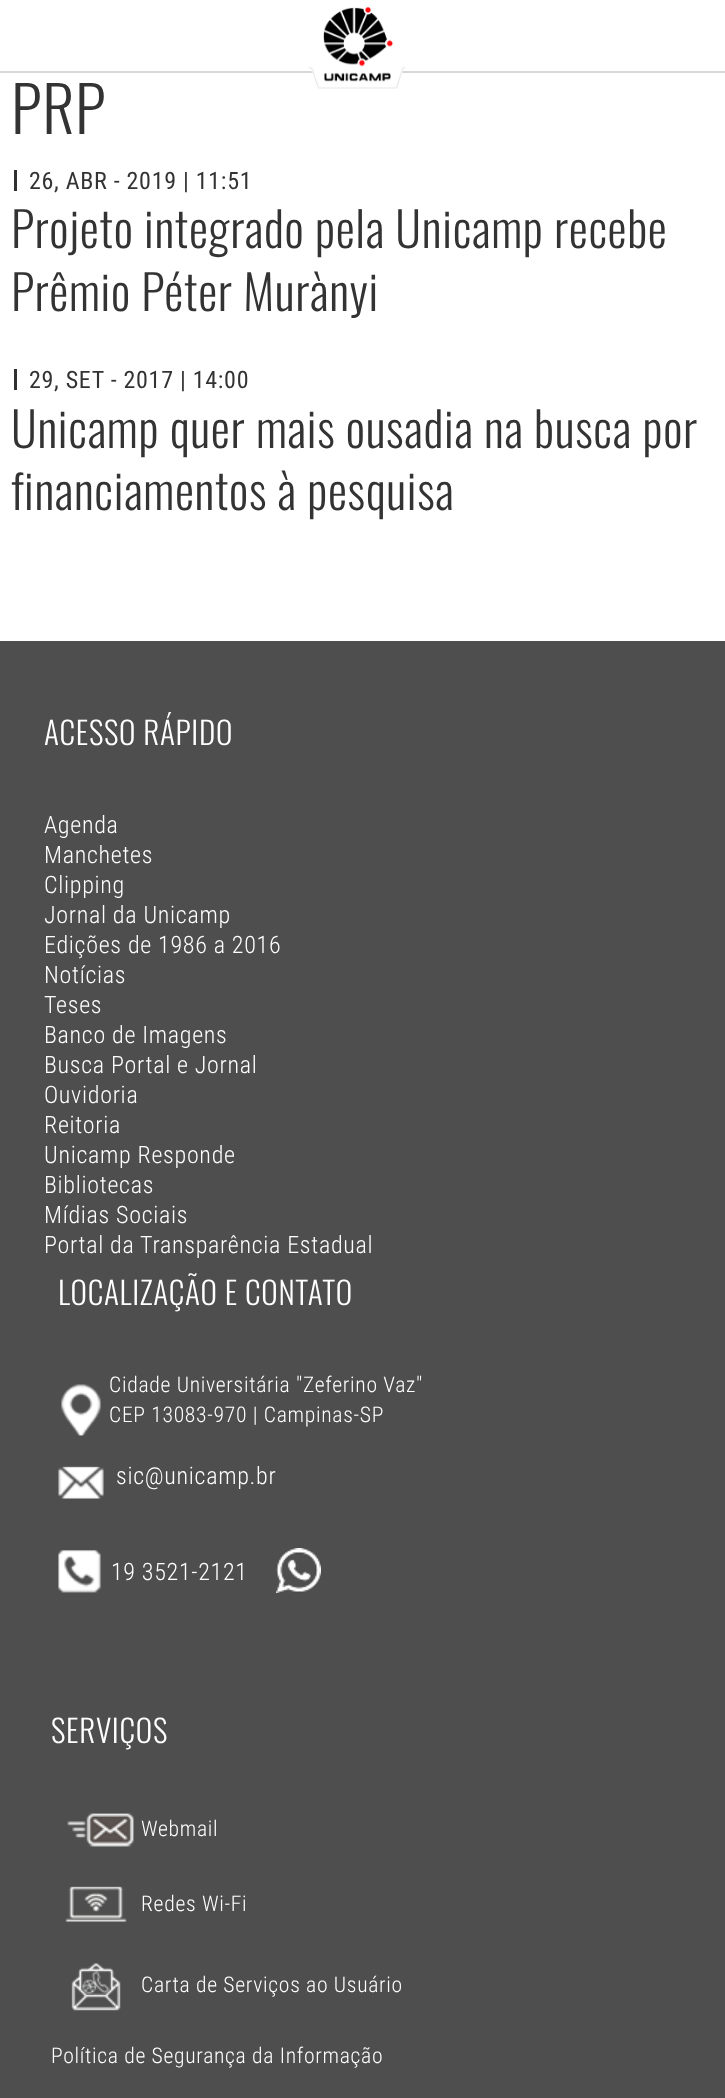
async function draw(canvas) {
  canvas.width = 725
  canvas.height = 2098
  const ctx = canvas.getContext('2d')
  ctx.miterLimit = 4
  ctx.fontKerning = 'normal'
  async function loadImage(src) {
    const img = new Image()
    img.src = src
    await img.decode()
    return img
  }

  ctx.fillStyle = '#fff'
  ctx.fillRect(0, 0, 725, 2098)
  ctx.fillStyle = '#d7d7d7'
  ctx.fillRect(0, 71, 725, 2)
  ctx.drawImage(await loadImage('image0.png'), 309, 7, 96, 82)
  ctx.letterSpacing = '0.7px'
  ctx.font = '300 63px Oswald'
  ctx.fillStyle = '#333'
  ctx.fillText('PRP', 11, 134)
  ctx.fillStyle = '#2f2f2f'
  ctx.fillRect(14, 170, 3, 21)
  ctx.font = '24px Roboto Condensed'
  ctx.fillStyle = '#333'
  ctx.fillText('26, ABR - 2019 | 11:51', 29, 189)
  ctx.font = '300 48px Oswald'
  ctx.fillText('Projeto integrado pela Unicamp recebe', 11, 248)
  ctx.fillText('Prêmio Péter Murànyi', 11, 311)
  ctx.fillStyle = '#2f2f2f'
  ctx.fillRect(14, 369, 3, 21)
  ctx.font = '24px Roboto Condensed'
  ctx.fillStyle = '#333'
  ctx.fillText('29, SET - 2017 | 14:00', 29, 388)
  ctx.font = '300 48px Oswald'
  ctx.fillText('Unicamp quer mais ousadia na busca por', 11, 448)
  ctx.fillText('financiamentos à pesquisa', 11, 510)
  ctx.fillStyle = '#4e4e4e'
  ctx.fillRect(0, 641, 725, 1457)
  ctx.font = '300 31.25px Oswald'
  ctx.fillStyle = '#fff'
  ctx.fillText('ACESSO RÁPIDO', 44, 745)
  ctx.font = '300 24px Roboto Condensed'
  ctx.fillText('Agenda', 44, 833)
  ctx.fillText('Manchetes', 44, 863)
  ctx.fillText('Clipping', 44, 893)
  ctx.fillText('Jornal da Unicamp', 44, 923)
  ctx.fillText('Edições de 1986 a 2016', 44, 953)
  ctx.fillText('Notícias', 44, 983)
  ctx.fillText('Teses', 44, 1013)
  ctx.fillText('Banco de Imagens', 44, 1043)
  ctx.fillText('Busca Portal e Jornal', 44, 1073)
  ctx.fillText('Ouvidoria', 44, 1103)
  ctx.fillText('Reitoria', 44, 1133)
  ctx.fillText('Unicamp Responde', 44, 1163)
  ctx.fillText('Bibliotecas', 44, 1193)
  ctx.fillText('Mídias Sociais', 44, 1223)
  ctx.fillText('Portal da Transparência Estadual', 44, 1253)
  ctx.font = '300 31.25px Oswald'
  ctx.fillText('LOCALIZAÇÃO E CONTATO', 58, 1305)
  ctx.drawImage(await loadImage('image1.png'), 61, 1384, 40, 52)
  ctx.font = '300 21.6px Roboto Condensed'
  ctx.fillText('Cidade Universitária "Zeferino Vaz"', 109, 1392)
  ctx.fillText('CEP 13083-970 | Campinas-SP', 109, 1422)
  ctx.drawImage(await loadImage('image2.png'), 58, 1466, 46, 33)
  ctx.font = '300 24px Roboto Condensed'
  ctx.fillText('sic@unicamp.br', 116, 1484)
  ctx.drawImage(await loadImage('image3.png'), 58, 1550, 43, 43)
  ctx.fillText('19 3521-2121', 111, 1580)
  ctx.drawImage(await loadImage('image4.png'), 276, 1548, 45, 45)
  ctx.font = '300 31.25px Oswald'
  ctx.fillText('SERVIÇOS', 51, 1743)
  ctx.drawImage(await loadImage('image5.png'), 67, 1813, 67, 34)
  ctx.font = '300 21.6px Roboto Condensed'
  ctx.fillText('Webmail', 141, 1836)
  ctx.drawImage(await loadImage('image6.png'), 65, 1886, 62, 36)
  ctx.fillText('Redes Wi-Fi', 141, 1911)
  ctx.drawImage(await loadImage('image7.png'), 71, 1963, 50, 48)
  ctx.fillText('Carta de Serviços ao Usuário', 141, 1992)
  ctx.fillText('Política de Segurança da Informação', 51, 2063)
}

draw(document.querySelector('canvas'))
